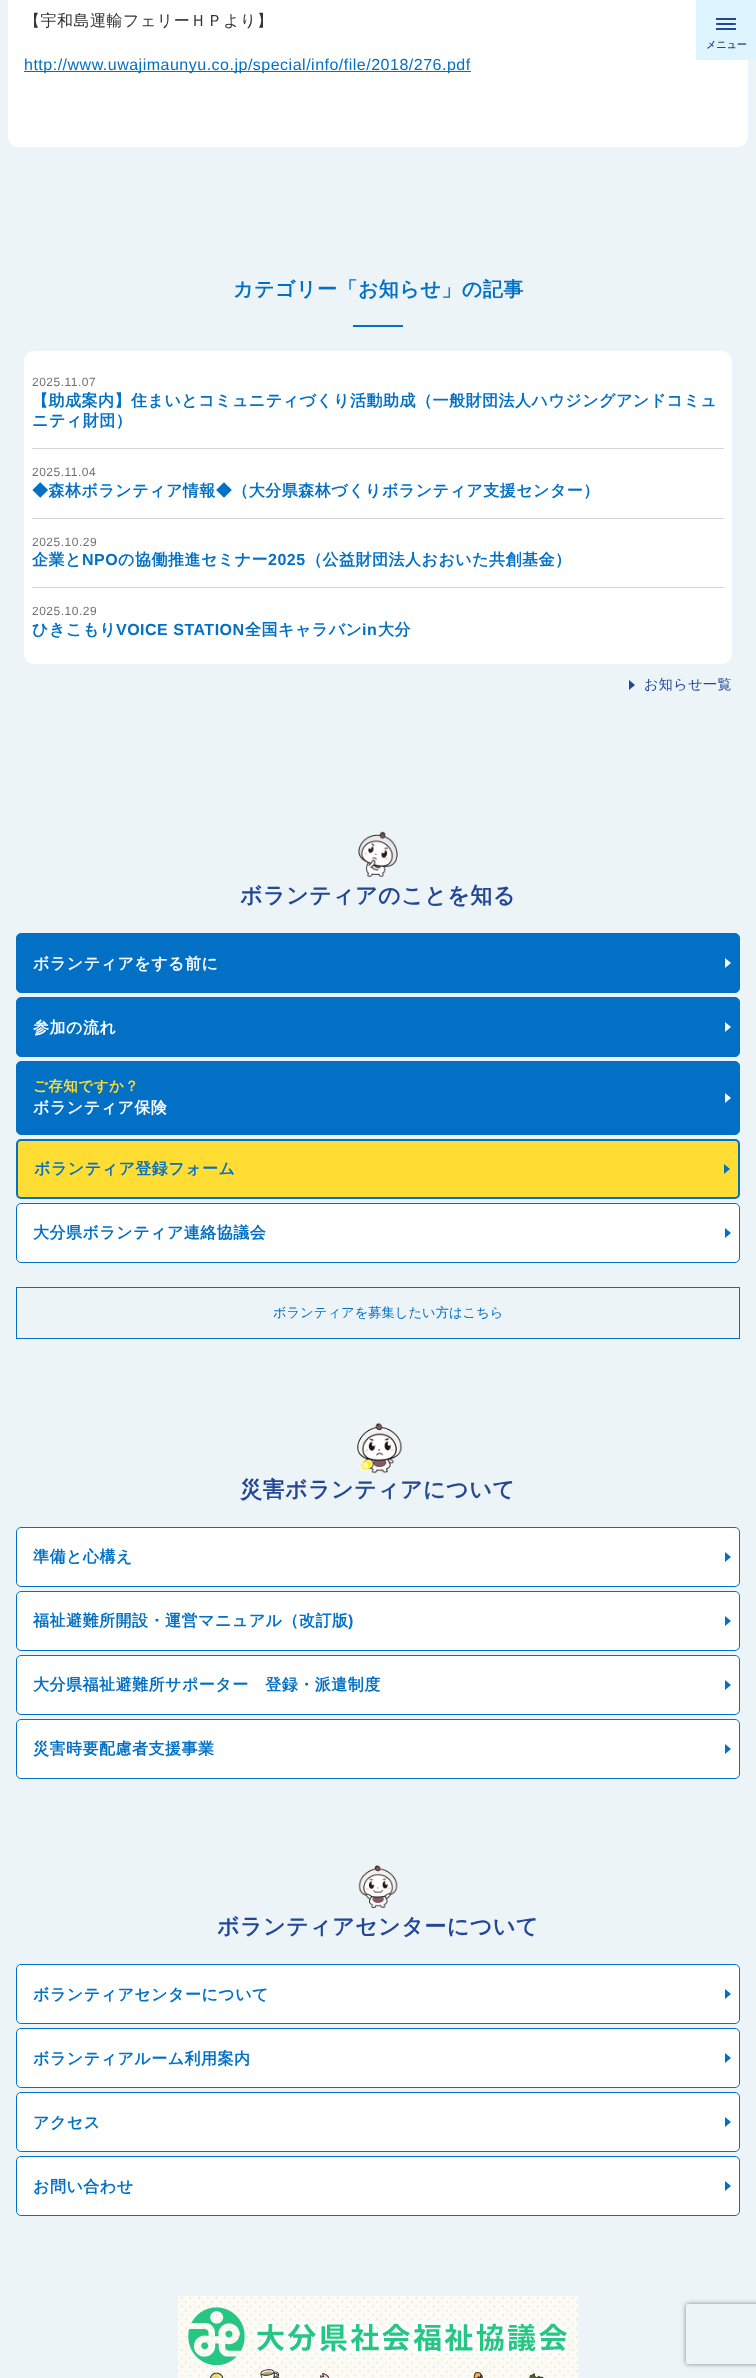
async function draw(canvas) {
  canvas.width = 756
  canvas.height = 2378
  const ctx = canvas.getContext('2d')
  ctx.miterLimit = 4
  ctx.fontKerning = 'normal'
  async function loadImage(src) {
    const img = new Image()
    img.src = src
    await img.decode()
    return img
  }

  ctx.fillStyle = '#edf4f8'
  ctx.fillRect(0, 0, 756, 2378)
  ctx.fillStyle = '#fff'
  ctx.beginPath()
  ctx.roundRect(8, -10, 740, 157, 10)
  ctx.fill()
  ctx.letterSpacing = '0.5px'
  ctx.font = '500 16px WenQuanYi Zen Hei'
  ctx.fillStyle = '#333'
  ctx.fillText('【宇和島運輸フェリーＨＰより】', 24, 26)
  ctx.fillStyle = '#0270c4'
  ctx.fillRect(24, 71, 447, 1)
  ctx.font = '16px Liberation Sans'
  ctx.fillText('http://www.uwajimaunyu.co.jp/special/info/file/2018/276.pdf', 24, 70)
  ctx.font = 'bold 20px WenQuanYi Zen Hei'
  ctx.fillText('カテゴリー「お知らせ」の記事', 233, 296)
  ctx.fillRect(353, 325, 50, 2)
  ctx.fillStyle = '#fff'
  ctx.beginPath()
  ctx.roundRect(24, 351, 708, 313, 10)
  ctx.fill()
  ctx.font = '12px Liberation Sans'
  ctx.fillStyle = '#707070'
  ctx.fillText('2025.11.07', 32, 386)
  ctx.font = 'bold 16px WenQuanYi Zen Hei'
  ctx.fillStyle = '#0270c4'
  ctx.fillText('【助成案内】住まいとコミュニティづくり活動助成（一般財団法人ハウジングアンドコミュ', 32, 406)
  ctx.fillText('ニティ財団）', 32, 426)
  ctx.fillStyle = '#d5d5d5'
  ctx.fillRect(32, 448, 692, 1)
  ctx.font = '12px Liberation Sans'
  ctx.fillStyle = '#707070'
  ctx.fillText('2025.11.04', 32, 476)
  ctx.font = 'bold 16px WenQuanYi Zen Hei'
  ctx.fillStyle = '#0270c4'
  ctx.fillText('◆森林ボランティア情報◆（大分県森林づくりボランティア支援センター）', 32, 496)
  ctx.fillStyle = '#d5d5d5'
  ctx.fillRect(32, 518, 692, 1)
  ctx.font = '12px Liberation Sans'
  ctx.fillStyle = '#707070'
  ctx.fillText('2025.10.29', 32, 546)
  ctx.font = 'bold 16px WenQuanYi Zen Hei'
  ctx.fillStyle = '#0270c4'
  ctx.fillText('企業と', 32, 565)
  ctx.font = 'bold 16px Liberation Sans'
  ctx.fillText('NPO', 82, 565)
  ctx.font = 'bold 16px WenQuanYi Zen Hei'
  ctx.fillText('の協働推進セミナー', 118, 565)
  ctx.font = 'bold 16px Liberation Sans'
  ctx.fillText('2025', 268, 565)
  ctx.font = 'bold 16px WenQuanYi Zen Hei'
  ctx.fillText('（公益財団法人おおいた共創基金）', 306, 565)
  ctx.fillStyle = '#d5d5d5'
  ctx.fillRect(32, 587, 692, 1)
  ctx.font = '12px Liberation Sans'
  ctx.fillStyle = '#707070'
  ctx.fillText('2025.10.29', 32, 615)
  ctx.font = 'bold 16px WenQuanYi Zen Hei'
  ctx.fillStyle = '#0270c4'
  ctx.fillText('ひきこもり', 32, 635)
  ctx.font = 'bold 16px Liberation Sans'
  ctx.fillText('VOICE STATION', 116, 635)
  ctx.font = 'bold 16px WenQuanYi Zen Hei'
  ctx.fillText('全国キャラバン', 245, 635)
  ctx.font = 'bold 16px Liberation Sans'
  ctx.fillText('in', 362, 635)
  ctx.font = 'bold 16px WenQuanYi Zen Hei'
  ctx.fillText('大分', 378, 635)
  ctx.fillStyle = '#224895'
  ctx.beginPath()
  ctx.moveTo(629, 690)
  ctx.lineTo(629, 680)
  ctx.lineTo(635, 685)
  ctx.closePath()
  ctx.fill()
  ctx.font = '500 14px WenQuanYi Zen Hei'
  ctx.fillText('お知らせ一覧', 644, 689)
  ctx.drawImage(await loadImage('image0.png'), 358, 831, 40, 46)
  ctx.font = 'bold 22px WenQuanYi Zen Hei'
  ctx.fillText('ボランティアのことを知る', 240, 903)
  ctx.fillStyle = '#0270c4'
  ctx.beginPath()
  ctx.roundRect(16.5, 933.5, 723, 59, 4.5)
  ctx.fill()
  ctx.strokeStyle = '#0270c4'
  ctx.stroke()
  ctx.font = 'bold 16px WenQuanYi Zen Hei'
  ctx.fillStyle = '#fff'
  ctx.fillText('ボランティアをする前に', 33, 969)
  ctx.beginPath()
  ctx.moveTo(725, 968)
  ctx.lineTo(725, 958)
  ctx.lineTo(731, 963)
  ctx.closePath()
  ctx.fill()
  ctx.fillStyle = '#0270c4'
  ctx.beginPath()
  ctx.roundRect(16.5, 997.5, 723, 59, 4.5)
  ctx.fill()
  ctx.stroke()
  ctx.fillStyle = '#fff'
  ctx.fillText('参加の流れ', 33, 1033)
  ctx.beginPath()
  ctx.moveTo(725, 1032)
  ctx.lineTo(725, 1022)
  ctx.lineTo(731, 1027)
  ctx.closePath()
  ctx.fill()
  ctx.fillStyle = '#0270c4'
  ctx.beginPath()
  ctx.roundRect(16.5, 1061.5, 723, 73, 4.5)
  ctx.fill()
  ctx.stroke()
  ctx.font = 'bold 14.5px WenQuanYi Zen Hei'
  ctx.fillStyle = '#fd3'
  ctx.fillText('ご存知ですか？', 33, 1091)
  ctx.fillStyle = '#fff'
  ctx.beginPath()
  ctx.moveTo(725, 1103)
  ctx.lineTo(725, 1093)
  ctx.lineTo(731, 1098)
  ctx.closePath()
  ctx.fill()
  ctx.font = 'bold 16px WenQuanYi Zen Hei'
  ctx.fillText('ボランティア保険', 33, 1113)
  ctx.fillStyle = '#fd3'
  ctx.beginPath()
  ctx.roundRect(17, 1140, 722, 58, 4)
  ctx.fill()
  ctx.lineWidth = 2
  ctx.stroke()
  ctx.fillStyle = '#0270c4'
  ctx.fillText('ボランティア登録フォーム', 34, 1174)
  ctx.beginPath()
  ctx.moveTo(724, 1174)
  ctx.lineTo(724, 1164)
  ctx.lineTo(730, 1169)
  ctx.closePath()
  ctx.fill()
  ctx.fillStyle = '#fff'
  ctx.beginPath()
  ctx.roundRect(16.5, 1203.5, 723, 59, 4.5)
  ctx.fill()
  ctx.lineWidth = 1
  ctx.stroke()
  ctx.fillStyle = '#0270c4'
  ctx.fillText('大分県ボランティア連絡協議会', 33, 1238)
  ctx.beginPath()
  ctx.moveTo(725, 1238)
  ctx.lineTo(725, 1228)
  ctx.lineTo(731, 1233)
  ctx.closePath()
  ctx.fill()
  ctx.strokeRect(16.5, 1287.5, 723, 51)
  ctx.letterSpacing = '0px'
  ctx.font = '500 13.3px WenQuanYi Zen Hei'
  ctx.fillText('ボランティアを募集したい方はこちら', 273, 1317)
  ctx.drawImage(await loadImage('image1.png'), 356, 1422, 47, 52)
  ctx.letterSpacing = '0.5px'
  ctx.font = 'bold 22px WenQuanYi Zen Hei'
  ctx.fillStyle = '#224895'
  ctx.fillText('災害ボランティアについて', 240, 1497)
  ctx.fillStyle = '#fff'
  ctx.beginPath()
  ctx.roundRect(16.5, 1527.5, 723, 59, 4.5)
  ctx.fill()
  ctx.stroke()
  ctx.font = 'bold 16px WenQuanYi Zen Hei'
  ctx.fillStyle = '#0270c4'
  ctx.fillText('準備と心構え', 33, 1562)
  ctx.beginPath()
  ctx.moveTo(725, 1562)
  ctx.lineTo(725, 1552)
  ctx.lineTo(731, 1557)
  ctx.closePath()
  ctx.fill()
  ctx.fillStyle = '#fff'
  ctx.beginPath()
  ctx.roundRect(16.5, 1591.5, 723, 59, 4.5)
  ctx.fill()
  ctx.stroke()
  ctx.fillStyle = '#0270c4'
  ctx.fillText('福祉避難所開設・運営マニュアル（改訂版', 33, 1626)
  ctx.font = 'bold 16px Liberation Sans'
  ctx.fillText(')', 348, 1626)
  ctx.beginPath()
  ctx.moveTo(725, 1626)
  ctx.lineTo(725, 1616)
  ctx.lineTo(731, 1621)
  ctx.closePath()
  ctx.fill()
  ctx.fillStyle = '#fff'
  ctx.beginPath()
  ctx.roundRect(16.5, 1655.5, 723, 59, 4.5)
  ctx.fill()
  ctx.stroke()
  ctx.font = 'bold 16px WenQuanYi Zen Hei'
  ctx.fillStyle = '#0270c4'
  ctx.fillText('大分県福祉避難所サポーター　登録・派遣制度', 33, 1690)
  ctx.beginPath()
  ctx.moveTo(725, 1690)
  ctx.lineTo(725, 1680)
  ctx.lineTo(731, 1685)
  ctx.closePath()
  ctx.fill()
  ctx.fillStyle = '#fff'
  ctx.beginPath()
  ctx.roundRect(16.5, 1719.5, 723, 59, 4.5)
  ctx.fill()
  ctx.stroke()
  ctx.fillStyle = '#0270c4'
  ctx.fillText('災害時要配慮者支援事業', 33, 1754)
  ctx.beginPath()
  ctx.moveTo(725, 1754)
  ctx.lineTo(725, 1744)
  ctx.lineTo(731, 1749)
  ctx.closePath()
  ctx.fill()
  ctx.drawImage(await loadImage('image2.png'), 358, 1865, 40, 43)
  ctx.font = 'bold 22px WenQuanYi Zen Hei'
  ctx.fillStyle = '#224895'
  ctx.fillText('ボランティアセンターについて', 217, 1934)
  ctx.fillStyle = '#fff'
  ctx.beginPath()
  ctx.roundRect(16.5, 1964.5, 723, 59, 4.5)
  ctx.fill()
  ctx.stroke()
  ctx.font = 'bold 16px WenQuanYi Zen Hei'
  ctx.fillStyle = '#0270c4'
  ctx.fillText('ボランティアセンターについて', 33, 2000)
  ctx.beginPath()
  ctx.moveTo(725, 1999)
  ctx.lineTo(725, 1989)
  ctx.lineTo(731, 1994)
  ctx.closePath()
  ctx.fill()
  ctx.fillStyle = '#fff'
  ctx.beginPath()
  ctx.roundRect(16.5, 2028.5, 723, 59, 4.5)
  ctx.fill()
  ctx.stroke()
  ctx.fillStyle = '#0270c4'
  ctx.fillText('ボランティアルーム利用案内', 33, 2064)
  ctx.beginPath()
  ctx.moveTo(725, 2063)
  ctx.lineTo(725, 2053)
  ctx.lineTo(731, 2058)
  ctx.closePath()
  ctx.fill()
  ctx.fillStyle = '#fff'
  ctx.beginPath()
  ctx.roundRect(16.5, 2092.5, 723, 59, 4.5)
  ctx.fill()
  ctx.stroke()
  ctx.fillStyle = '#0270c4'
  ctx.fillText('アクセス', 33, 2128)
  ctx.beginPath()
  ctx.moveTo(725, 2127)
  ctx.lineTo(725, 2117)
  ctx.lineTo(731, 2122)
  ctx.closePath()
  ctx.fill()
  ctx.fillStyle = '#fff'
  ctx.beginPath()
  ctx.roundRect(16.5, 2156.5, 723, 59, 4.5)
  ctx.fill()
  ctx.stroke()
  ctx.fillStyle = '#0270c4'
  ctx.fillText('お問い合わせ', 33, 2192)
  ctx.beginPath()
  ctx.moveTo(725, 2191)
  ctx.lineTo(725, 2181)
  ctx.lineTo(731, 2186)
  ctx.closePath()
  ctx.fill()
  ctx.drawImage(await loadImage('image3.png'), 178, 2296, 400, 82)
  ctx.fillStyle = '#def4ff'
  ctx.fillRect(696, 0, 60, 60)
  ctx.fillStyle = '#224895'
  ctx.fillRect(716, 18, 20, 2)
  ctx.fillRect(716, 28, 20, 2)
  ctx.beginPath()
  ctx.roundRect(716, 23, 20, 2, 1)
  ctx.fill()
  ctx.letterSpacing = '0px'
  ctx.font = 'bold 10px WenQuanYi Zen Hei'
  ctx.fillText('メニュー', 706, 48)
  ctx.save()
  ctx.beginPath()
  ctx.moveTo(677, 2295)
  ctx.lineTo(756, 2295)
  ctx.lineTo(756, 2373)
  ctx.lineTo(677, 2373)
  ctx.closePath()
  ctx.moveTo(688, 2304)
  ctx.lineTo(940, 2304)
  ctx.bezierCurveTo(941, 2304, 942, 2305, 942, 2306)
  ctx.lineTo(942, 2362)
  ctx.bezierCurveTo(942, 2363, 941, 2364, 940, 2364)
  ctx.lineTo(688, 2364)
  ctx.bezierCurveTo(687, 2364, 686, 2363, 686, 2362)
  ctx.lineTo(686, 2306)
  ctx.bezierCurveTo(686, 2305, 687, 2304, 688, 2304)
  ctx.closePath()
  ctx.clip('evenodd')
  ctx.fillStyle = '#808080'
  ctx.filter = 'blur(2.5px)'
  ctx.beginPath()
  ctx.roundRect(686, 2304, 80, 60, 2)
  ctx.fill()
  ctx.filter = 'none'
  ctx.restore()
}

draw(document.querySelector('canvas'))
